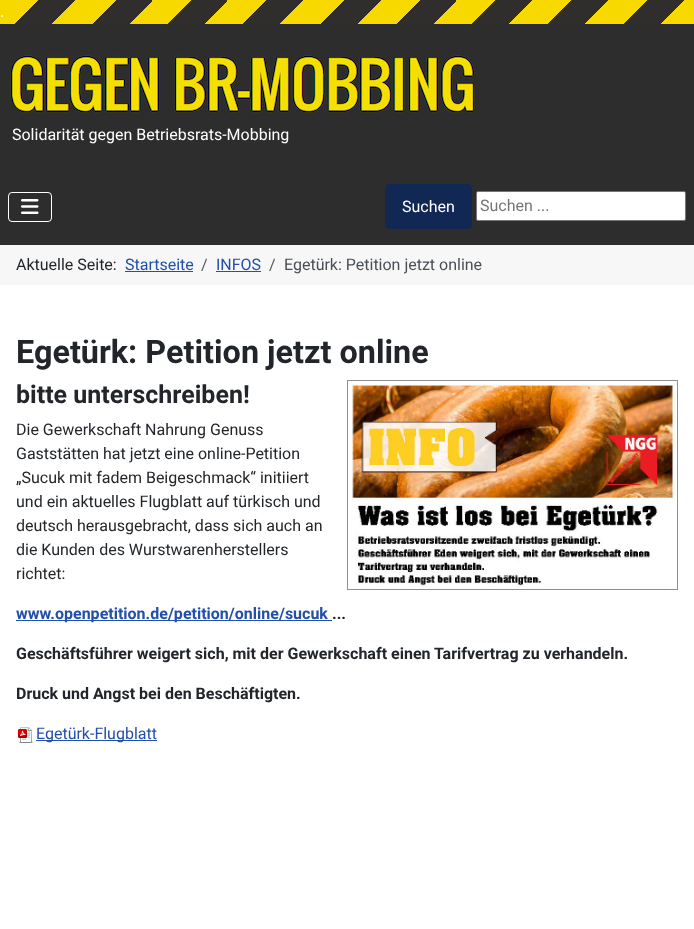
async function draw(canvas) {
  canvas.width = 694
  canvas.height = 929
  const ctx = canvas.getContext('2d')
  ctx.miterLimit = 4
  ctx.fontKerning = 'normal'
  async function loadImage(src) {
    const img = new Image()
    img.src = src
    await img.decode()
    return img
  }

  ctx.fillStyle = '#fff'
  ctx.fillRect(0, 0, 694, 929)
  ctx.fillStyle = '#2d2d2d'
  ctx.fillRect(0, 24, 694, 221)
  ctx.drawImage(await loadImage('image0.png'), 0, 0, 694, 24)
  ctx.font = '16px Roboto'
  ctx.fillStyle = '#fff'
  ctx.fillText('.', 0, 17)
  ctx.drawImage(await loadImage('image1.png'), 10, 55, 465, 58)
  ctx.fillText('Solidarität gegen Betriebsrats-Mobbing', 12, 140)
  ctx.beginPath()
  ctx.roundRect(8.5, 192.5, 43, 29, 3.5)
  ctx.strokeStyle = '#fff'
  ctx.stroke()
  ctx.drawImage(await loadImage('image2.png'), 21, 199, 18, 15)
  ctx.fillStyle = '#112855'
  ctx.beginPath()
  ctx.roundRect(385.5, 184.5, 86, 44, 3.5)
  ctx.fill()
  ctx.strokeStyle = '#112855'
  ctx.stroke()
  ctx.fillStyle = '#fff'
  ctx.fillText('Suchen', 402, 212)
  ctx.beginPath()
  ctx.roundRect(476.5, 191.5, 209, 29, 1.5)
  ctx.fill()
  ctx.strokeStyle = '#767676'
  ctx.stroke()
  ctx.fillStyle = '#757575'
  ctx.fillText('Suchen ...', 480, 211)
  ctx.fillStyle = '#f7f7f7'
  ctx.fillRect(0, 245, 694, 40)
  ctx.fillStyle = '#22262a'
  ctx.fillText('Aktuelle Seite:', 16, 270)
  ctx.fillStyle = '#224faa'
  ctx.fillText('Startseite', 125, 270)
  ctx.fillRect(125, 271, 68, 1)
  ctx.fillStyle = '#575a5d'
  ctx.fillText('/', 201, 270)
  ctx.fillStyle = '#224faa'
  ctx.fillText('INFOS', 216, 270)
  ctx.fillRect(216, 271, 45, 1)
  ctx.fillStyle = '#575a5d'
  ctx.fillText('/', 269, 270)
  ctx.fillStyle = '#484f56'
  ctx.fillText('Egetürk: Petition jetzt online', 284, 270)
  ctx.font = 'bold 32.4px Roboto'
  ctx.fillStyle = '#22262a'
  ctx.fillText('Egetürk: Petition jetzt online', 16, 363)
  ctx.font = 'bold 25px Roboto'
  ctx.fillText('bitte unterschreiben!', 16, 403)
  ctx.strokeStyle = '#8f8f8f'
  ctx.strokeRect(347.5, 380.5, 330, 209)
  ctx.drawImage(await loadImage('image3.png'), 352, 384, 323, 205)
  ctx.font = '16px Roboto'
  ctx.fillText('Die Gewerkschaft Nahrung Genuss', 16, 435)
  ctx.fillText('Gaststätten hat jetzt eine online-Petition', 16, 459)
  ctx.fillText('„Sucuk mit fadem Beigeschmack“ initiiert', 16, 483)
  ctx.fillText('und ein aktuelles Flugblatt auf türkisch und', 16, 507)
  ctx.fillText('deutsch herausgebracht, dass sich auch an', 16, 531)
  ctx.fillText('die Kunden des Wurstwarenherstellers', 16, 555)
  ctx.fillText('richtet:', 16, 579)
  ctx.fillStyle = '#224faa'
  ctx.fillRect(16, 620, 316, 1)
  ctx.font = 'bold 16px Roboto'
  ctx.fillText('www.openpetition.de/petition/online/sucuk', 16, 619)
  ctx.fillStyle = '#22262a'
  ctx.fillText('...', 332, 619)
  ctx.fillText('Geschäftsführer weigert sich, mit der Gewerkschaft einen Tarifvertrag zu verhandeln.', 16, 659)
  ctx.fillText('Druck und Angst bei den Beschäftigten.', 16, 699)
  ctx.drawImage(await loadImage('image4.png'), 18, 727, 16, 16)
  ctx.fillStyle = '#224faa'
  ctx.fillRect(36, 740, 121, 1)
  ctx.font = '16px Roboto'
  ctx.fillText('Egetürk-Flugblatt', 36, 739)
}

draw(document.querySelector('canvas'))
